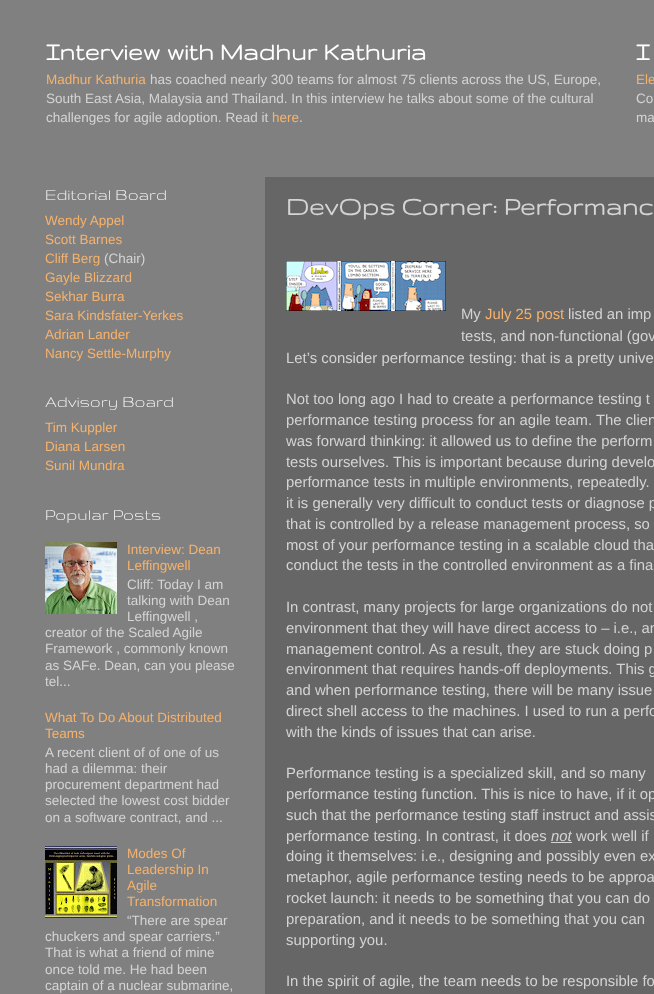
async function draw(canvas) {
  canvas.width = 654
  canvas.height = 994
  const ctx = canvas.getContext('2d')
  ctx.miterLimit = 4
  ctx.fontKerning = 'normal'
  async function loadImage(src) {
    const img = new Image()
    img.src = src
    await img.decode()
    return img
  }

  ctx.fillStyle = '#808080'
  ctx.fillRect(0, 0, 654, 994)
  ctx.font = 'bold 27px Gruppo'
  ctx.fillStyle = '#fff'
  ctx.fillText('Interview with Madhur Kathuria', 46, 60)
  ctx.font = '13.5px Liberation Sans'
  ctx.fillStyle = '#f6b26b'
  ctx.fillText('Madhur Kathuria', 46, 84)
  ctx.fillStyle = '#d4d4d4'
  ctx.fillText('has coached nearly 300 teams for almost 75 clients across the US, Europe,', 150, 84)
  ctx.fillText('South East Asia, Malaysia and Thailand. In this interview he talks about some of the cultural', 46, 103)
  ctx.fillText('challenges for agile adoption. Read it', 46, 122)
  ctx.fillStyle = '#f6b26b'
  ctx.fillText('here', 272, 122)
  ctx.fillStyle = '#d4d4d4'
  ctx.fillText('.', 299, 122)
  ctx.font = 'bold 27px Gruppo'
  ctx.fillStyle = '#fff'
  ctx.fillText('I', 636, 60)
  ctx.font = '13.5px Liberation Sans'
  ctx.fillStyle = '#f6b26b'
  ctx.fillText('Ele', 636, 84)
  ctx.fillStyle = '#d4d4d4'
  ctx.fillText('Co', 636, 103)
  ctx.fillText('ma', 636, 122)
  ctx.font = '18px Gruppo'
  ctx.fillStyle = '#fff'
  ctx.fillText('Editorial Board', 45, 200)
  ctx.font = '13.5px Liberation Sans'
  ctx.fillStyle = '#f6b26b'
  ctx.fillText('Wendy Appel', 45, 225)
  ctx.fillText('Scott Barnes', 45, 244)
  ctx.fillText('Cliff Berg', 45, 263)
  ctx.fillStyle = '#d4d4d4'
  ctx.fillText('(Chair)', 104, 263)
  ctx.fillStyle = '#f6b26b'
  ctx.fillText('Gayle Blizzard', 45, 282)
  ctx.fillText('Sekhar Burra', 45, 301)
  ctx.fillText('Sara Kindsfater-Yerkes', 45, 320)
  ctx.fillText('Adrian Lander', 45, 339)
  ctx.fillText('Nancy Settle-Murphy', 45, 358)
  ctx.font = '18px Gruppo'
  ctx.fillStyle = '#fff'
  ctx.fillText('Advisory Board', 45, 407)
  ctx.font = '13.5px Liberation Sans'
  ctx.fillStyle = '#f6b26b'
  ctx.fillText('Tim Kuppler', 45, 432)
  ctx.fillText('Diana Larsen', 45, 451)
  ctx.fillText('Sunil Mundra', 45, 470)
  ctx.font = '18px Gruppo'
  ctx.fillStyle = '#fff'
  ctx.fillText('Popular Posts', 45, 520)
  ctx.drawImage(await loadImage('image0.png'), 45, 542, 72, 72)
  ctx.font = '13.5px Liberation Sans'
  ctx.fillStyle = '#f6b26b'
  ctx.fillText('Interview: Dean', 127, 554)
  ctx.fillText('Leffingwell', 127, 570)
  ctx.fillStyle = '#d4d4d4'
  ctx.fillText('Cliff: Today I am', 127, 589)
  ctx.fillText('talking with Dean', 127, 605)
  ctx.fillText('Leffingwell ,', 127, 621)
  ctx.fillText('creator of the Scaled Agile', 45, 637)
  ctx.fillText('Framework , commonly known', 45, 653)
  ctx.fillText('as SAFe. Dean, can you please', 45, 670)
  ctx.fillText('tel...', 45, 686)
  ctx.fillStyle = '#f6b26b'
  ctx.fillText('What To Do About Distributed', 45, 722)
  ctx.fillText('Teams', 45, 738)
  ctx.fillStyle = '#d4d4d4'
  ctx.fillText('A recent client of of one of us', 45, 757)
  ctx.fillText('had a dilemma: their', 45, 773)
  ctx.fillText('procurement department had', 45, 789)
  ctx.fillText('selected the lowest cost bidder', 45, 805)
  ctx.fillText('on a software contract, and ...', 45, 822)
  ctx.drawImage(await loadImage('image1.png'), 45, 846, 72, 72)
  ctx.fillStyle = '#f6b26b'
  ctx.fillText('Modes Of', 127, 858)
  ctx.fillText('Leadership In', 127, 874)
  ctx.fillText('Agile', 127, 890)
  ctx.fillText('Transformation', 127, 906)
  ctx.fillStyle = '#d4d4d4'
  ctx.fillText('“There are spear', 127, 925)
  ctx.fillText('chuckers and spear carriers.”', 45, 941)
  ctx.fillText('That is what a friend of mine', 45, 957)
  ctx.fillText('once told me. He had been', 45, 974)
  ctx.fillText('captain of a nuclear submarine,', 45, 990)
  ctx.fillStyle = '#666'
  ctx.fillRect(265, 177, 389, 817)
  ctx.font = 'bold 28px Gruppo'
  ctx.fillStyle = '#d4d4d4'
  ctx.fillText('DevOps Corner: Performanc', 286, 215)
  ctx.drawImage(await loadImage('image2.png'), 286, 261, 160, 50)
  ctx.font = '14.85px Liberation Sans'
  ctx.fillText('My', 461, 319)
  ctx.fillStyle = '#f6b26b'
  ctx.fillText('July 25 post', 485, 319)
  ctx.fillStyle = '#d4d4d4'
  ctx.fillText('listed an imp', 568, 319)
  ctx.fillText('tests, and non-functional (gov', 461, 341)
  ctx.fillText('Let’s consider performance testing: that is a pretty unive', 286, 363)
  ctx.fillText('Not too long ago I had to create a performance testing t', 286, 404)
  ctx.fillText('performance testing process for an agile team. The clien', 286, 425)
  ctx.fillText('was forward thinking: it allowed us to define the perform', 286, 446)
  ctx.fillText('tests ourselves. This is important because during develo', 286, 467)
  ctx.fillText('performance tests in multiple environments, repeatedly.', 286, 487)
  ctx.fillText('it is generally very difficult to conduct tests or diagnose p', 286, 508)
  ctx.fillText('that is controlled by a release management process, so', 286, 529)
  ctx.fillText('most of your performance testing in a scalable cloud tha', 286, 550)
  ctx.fillText('conduct the tests in the controlled environment as a fina', 286, 570)
  ctx.fillText('In contrast, many projects for large organizations do not', 286, 612)
  ctx.fillText('environment that they will have direct access to – i.e., an', 286, 633)
  ctx.fillText('management control. As a result, they are stuck doing p', 286, 654)
  ctx.fillText('environment that requires hands-off deployments. This g', 286, 674)
  ctx.fillText('and when performance testing, there will be many issue', 286, 695)
  ctx.fillText('direct shell access to the machines. I used to run a perfo', 286, 716)
  ctx.fillText('with the kinds of issues that can arise.', 286, 737)
  ctx.fillText('Performance testing is a specialized skill, and so many', 286, 778)
  ctx.fillText('performance testing function. This is nice to have, if it op', 286, 799)
  ctx.fillText('such that the performance testing staff instruct and assis', 286, 820)
  ctx.fillText('performance testing. In contrast, it does', 286, 841)
  ctx.font = 'italic 14.85px Liberation Sans'
  ctx.fillText('not', 551, 841)
  ctx.fillRect(551, 842, 21, 1)
  ctx.font = '14.85px Liberation Sans'
  ctx.fillText('work well if', 576, 841)
  ctx.fillText('doing it themselves: i.e., designing and possibly even ex', 286, 861)
  ctx.fillText('metaphor, agile performance testing needs to be approa', 286, 882)
  ctx.fillText('rocket launch: it needs to be something that you can do', 286, 903)
  ctx.fillText('preparation, and it needs to be something that you can', 286, 924)
  ctx.fillText('supporting you.', 286, 945)
  ctx.fillText('In the spirit of agile, the team needs to be responsible fo', 286, 986)
}

draw(document.querySelector('canvas'))
